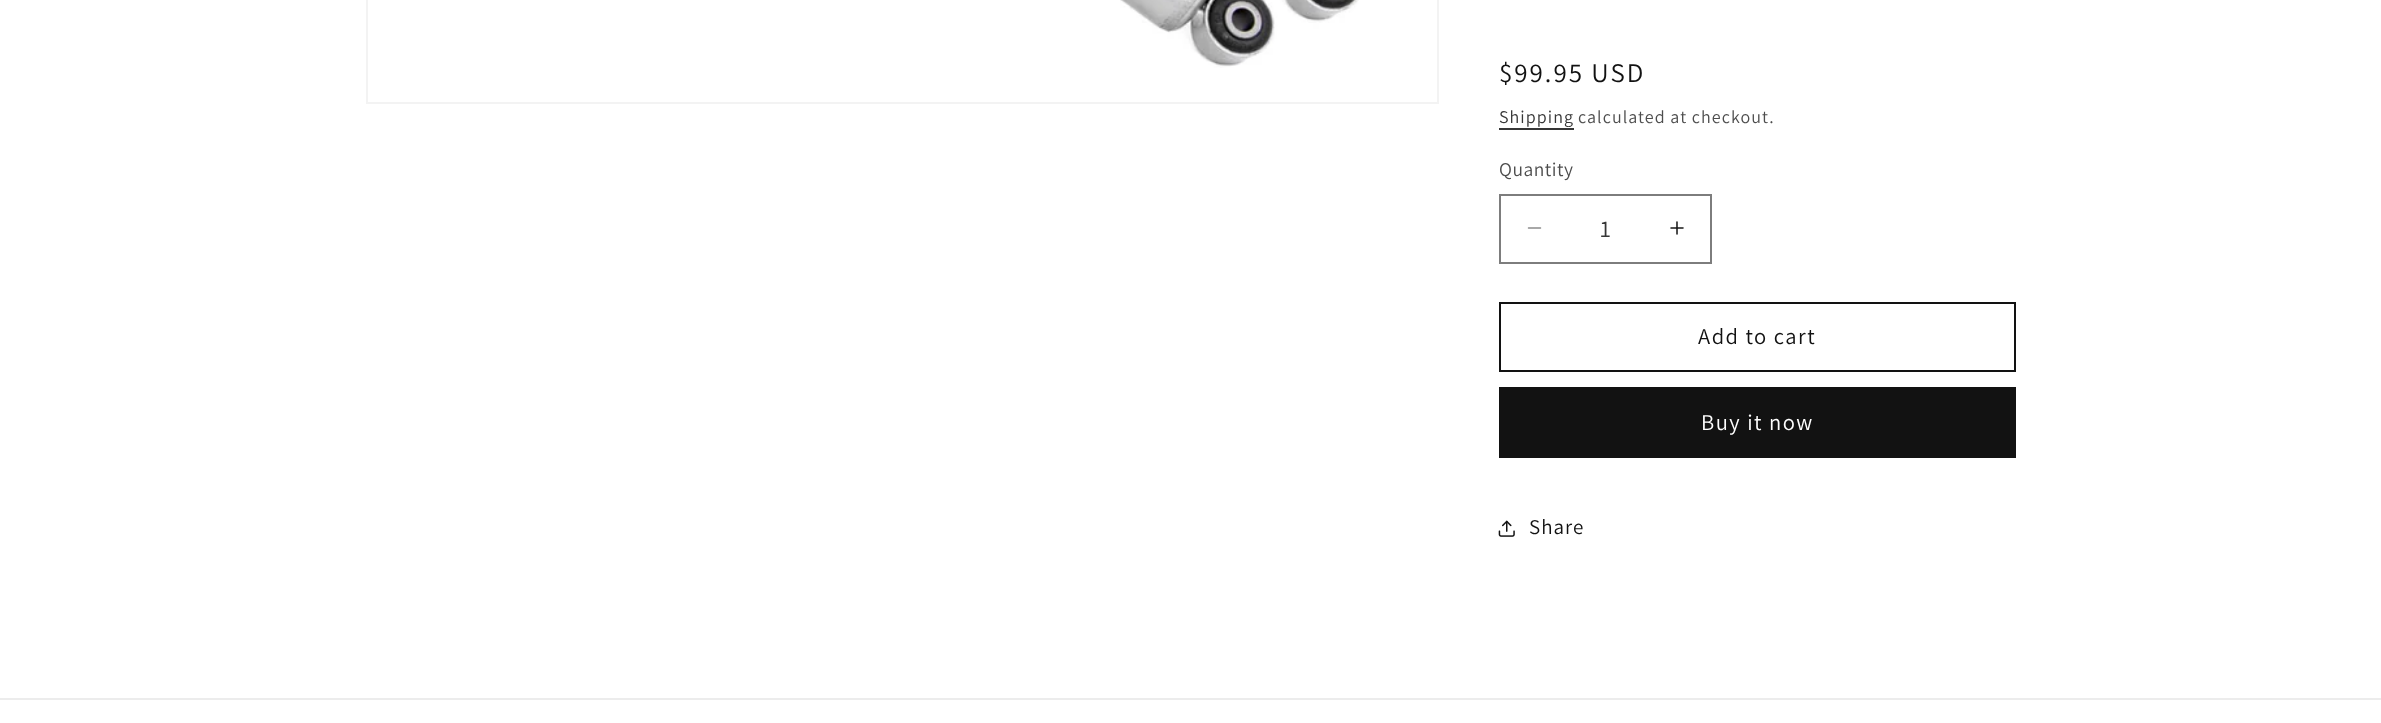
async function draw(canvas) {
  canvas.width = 2381
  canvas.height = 723
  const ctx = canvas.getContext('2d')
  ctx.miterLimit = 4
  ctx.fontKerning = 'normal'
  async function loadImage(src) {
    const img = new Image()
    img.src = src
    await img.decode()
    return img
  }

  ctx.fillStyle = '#fff'
  ctx.fillRect(0, 0, 2381, 723)
  ctx.strokeStyle = '#f3f3f3'
  ctx.lineWidth = 2
  ctx.strokeRect(367, -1, 1071, 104)
  ctx.drawImage(await loadImage('image0.png'), 1120, 0, 239, 68)
  ctx.letterSpacing = '2px'
  ctx.font = '27px Assistant'
  ctx.fillStyle = '#121212'
  ctx.fillText('$99.95 USD', 1499, 82)
  ctx.letterSpacing = '1.05px'
  ctx.font = '18px Assistant'
  ctx.fillStyle = '#363636'
  ctx.fillText('Shipping', 1499, 123)
  ctx.fillRect(1499, 128, 75, 2)
  ctx.fillStyle = '#4d4d4d'
  ctx.fillText('calculated at checkout.', 1578, 123)
  ctx.letterSpacing = '0.5px'
  ctx.font = '19.5px Assistant'
  ctx.fillText('Quantity', 1499, 176)
  ctx.drawImage(await loadImage('image1.png'), 1527, 227, 15, 2)
  ctx.drawImage(await loadImage('image2.png'), 1670, 221, 14, 14)
  ctx.strokeStyle = '#7d7d7d'
  ctx.strokeRect(1500, 195, 211, 68)
  ctx.letterSpacing = '0px'
  ctx.font = '24px Assistant'
  ctx.fillStyle = '#363636'
  ctx.fillText('1', 1600, 237)
  ctx.strokeStyle = '#121212'
  ctx.strokeRect(1500, 303, 515, 68)
  ctx.letterSpacing = '1.5px'
  ctx.font = '22.5px Assistant'
  ctx.fillStyle = '#121212'
  ctx.fillText('Add to cart', 1698, 344)
  ctx.fillRect(1499, 387, 517, 71)
  ctx.fillStyle = '#fff'
  ctx.fillText('Buy it now', 1701, 430)
  ctx.drawImage(await loadImage('image3.png'), 1498, 520, 17, 17)
  ctx.letterSpacing = '1px'
  ctx.font = '21px Assistant'
  ctx.fillStyle = '#121212'
  ctx.fillText('Share', 1529, 534)
  ctx.fillStyle = '#ececec'
  ctx.fillRect(0, 698, 2381, 2)
}

draw(document.querySelector('canvas'))
